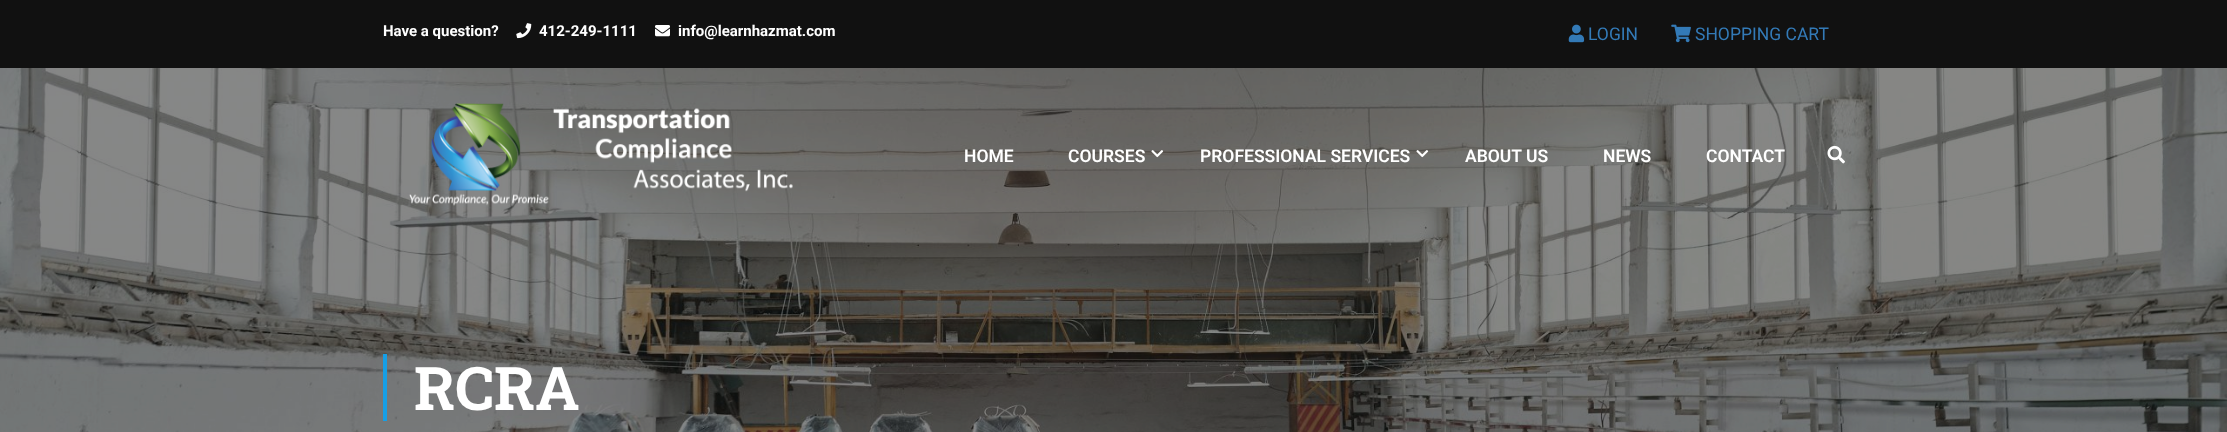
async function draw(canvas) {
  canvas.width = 2227
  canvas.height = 432
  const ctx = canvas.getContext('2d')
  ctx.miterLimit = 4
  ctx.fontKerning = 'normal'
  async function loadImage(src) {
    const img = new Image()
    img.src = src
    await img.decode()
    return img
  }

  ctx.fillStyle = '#fff'
  ctx.fillRect(0, 0, 2227, 432)
  ctx.fillStyle = '#111'
  ctx.fillRect(0, 0, 2227, 68)
  ctx.font = 'bold 15px Roboto'
  ctx.fillStyle = '#fff'
  ctx.fillText('Have a question?', 383, 36)
  ctx.drawImage(await loadImage('image0.png'), 516, 23, 16, 16)
  ctx.fillText('412-249-1111', 539, 36)
  ctx.drawImage(await loadImage('image1.png'), 655, 25, 15, 12)
  ctx.fillText('info@learnhazmat.com', 678, 36)
  ctx.drawImage(await loadImage('image2.png'), 1568, 24, 17, 19)
  ctx.font = '17.5px Roboto'
  ctx.fillStyle = '#337ab7'
  ctx.fillText('LOGIN', 1588, 40)
  ctx.drawImage(await loadImage('image3.png'), 1671, 24, 20, 19)
  ctx.fillText('SHOPPING CART', 1695, 40)
  ctx.drawImage(await loadImage('image8.png'), 0, 68, 2227, 364)
  ctx.drawImage(await loadImage('image4.png'), 409, 103, 384, 103)
  ctx.font = '600 17.5px Roboto'
  ctx.fillStyle = '#fff'
  ctx.fillText('HOME', 964, 162)
  ctx.fillText('COURSES', 1068, 162)
  ctx.drawImage(await loadImage('image5.png'), 1151, 150, 13, 8)
  ctx.fillText('PROFESSIONAL SERVICES', 1200, 162)
  ctx.drawImage(await loadImage('image6.png'), 1416, 150, 13, 8)
  ctx.fillText('ABOUT US', 1465, 162)
  ctx.fillText('NEWS', 1603, 162)
  ctx.fillText('CONTACT', 1706, 162)
  ctx.drawImage(await loadImage('image7.png'), 1827, 145, 18, 19)
  ctx.fillStyle = '#169fe6'
  ctx.fillRect(383, 354, 4, 67)
  ctx.font = 'bold 60px Roboto Slab'
  ctx.fillStyle = '#fff'
  ctx.fillText('RCRA', 414, 410)
}

draw(document.querySelector('canvas'))
